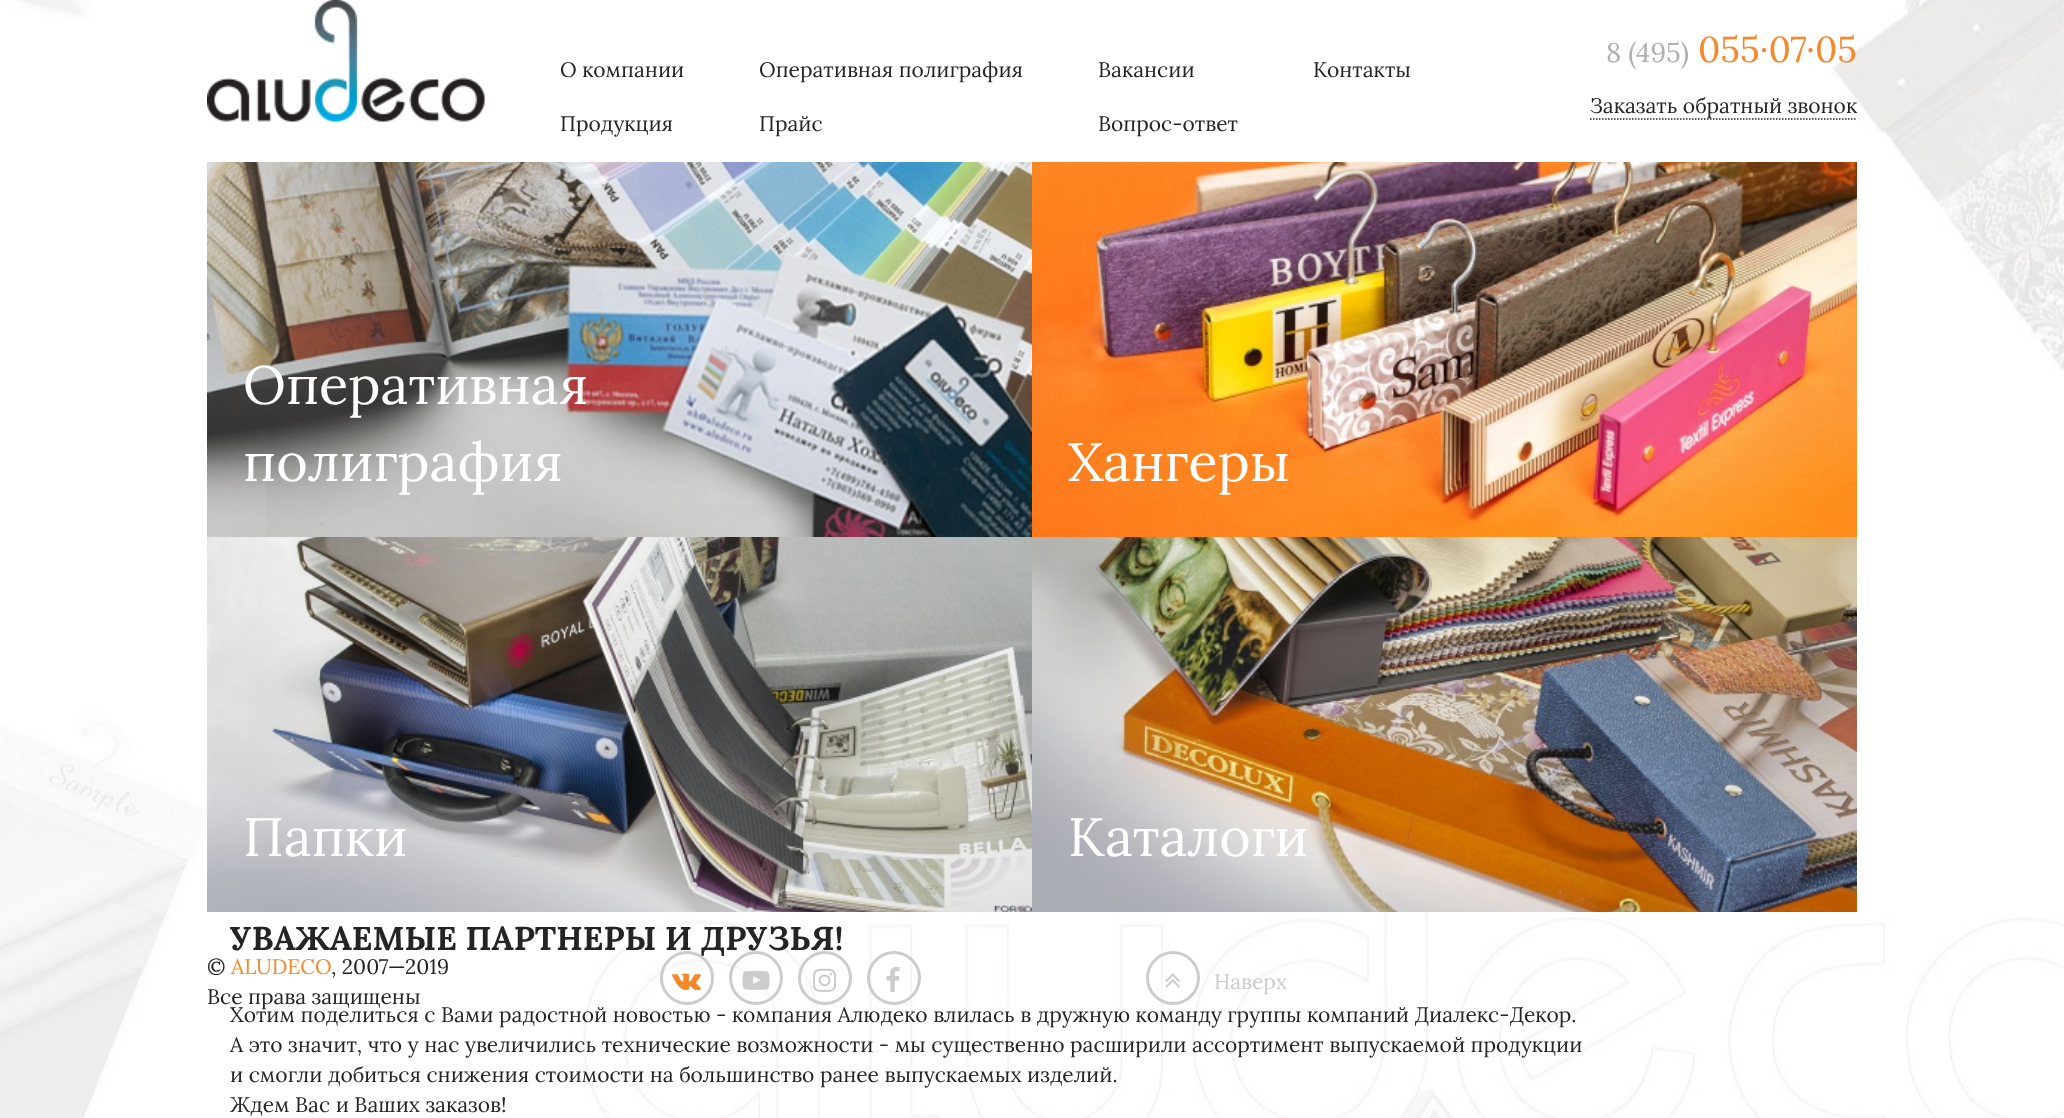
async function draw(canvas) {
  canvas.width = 2064
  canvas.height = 1118
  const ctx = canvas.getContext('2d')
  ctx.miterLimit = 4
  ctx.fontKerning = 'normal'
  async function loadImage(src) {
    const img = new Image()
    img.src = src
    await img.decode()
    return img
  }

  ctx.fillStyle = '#fff'
  ctx.fillRect(0, 0, 2064, 1118)
  ctx.drawImage(await loadImage('image0.png'), 0, 0, 2064, 1118)
  ctx.drawImage(await loadImage('image1.png'), 207, 0, 278, 122)
  ctx.font = '21px Lora'
  ctx.fillStyle = '#242424'
  ctx.fillText('О компании', 560, 77)
  ctx.fillText('Продукция', 560, 131)
  ctx.fillText('Оперативная полиграфия', 759, 77)
  ctx.fillText('Прайс', 759, 131)
  ctx.fillText('Вакансии', 1098, 77)
  ctx.fillText('Вопрос-ответ', 1098, 131)
  ctx.fillText('Контакты', 1313, 77)
  ctx.font = '27px Lora'
  ctx.fillStyle = '#b0b0b0'
  ctx.fillText('8 (495)', 1606, 62)
  ctx.font = '36px Lora'
  ctx.fillStyle = '#f5882b'
  ctx.fillText('055·07·05', 1698, 62)
  ctx.beginPath()
  ctx.moveTo(1590, 119)
  ctx.lineTo(1857, 119)
  ctx.strokeStyle = '#242424'
  ctx.lineWidth = 1.5
  ctx.setLineDash([1.5, 1.5])
  ctx.stroke()
  ctx.font = '21px Lora'
  ctx.fillStyle = '#242424'
  ctx.fillText('Заказать обратный звонок', 1590, 113)
  ctx.drawImage(await loadImage('image2.png'), 207, 162, 825, 375)
  ctx.font = '54px Lora'
  ctx.fillStyle = '#fff'
  ctx.fillText('Оперативная', 243, 404)
  ctx.fillText('полиграфия', 243, 481)
  ctx.drawImage(await loadImage('image3.png'), 1032, 162, 825, 375)
  ctx.fillText('Хангеры', 1068, 481)
  ctx.drawImage(await loadImage('image4.png'), 207, 537, 825, 375)
  ctx.fillText('Папки', 243, 856)
  ctx.drawImage(await loadImage('image5.png'), 1032, 537, 825, 375)
  ctx.fillText('Каталоги', 1068, 856)
  ctx.font = 'bold 33px Lora'
  ctx.fillStyle = '#242424'
  ctx.fillText('УВАЖАЕМЫЕ ПАРТНЕРЫ И ДРУЗЬЯ!', 230, 950)
  ctx.font = '21px Lora'
  ctx.fillText('Хотим поделиться с Вами радостной новостью - компания Алюдеко влилась в дружную команду группы компаний Диалекс-Декор.', 230, 1022)
  ctx.fillText('А это значит, что у нас увеличились технические возможности - мы существенно расширили ассортимент выпускаемой продукции', 230, 1052)
  ctx.fillText('и смогли добиться снижения стоимости на большинство ранее выпускаемых изделий.', 230, 1082)
  ctx.fillText('Ждем Вас и Ваших заказов!', 230, 1112)
  ctx.fillText('©', 207, 974)
  ctx.fillStyle = '#f5882b'
  ctx.fillText('ALUDECO', 231, 974)
  ctx.fillStyle = '#242424'
  ctx.fillText(', 2007—2019', 331, 974)
  ctx.fillText('Все права защищены', 207, 1004)
  ctx.beginPath()
  ctx.arc(687, 978, 25.5, 0, 2 * Math.PI)
  ctx.strokeStyle = '#ccc'
  ctx.lineWidth = 3
  ctx.setLineDash([])
  ctx.stroke()
  ctx.drawImage(await loadImage('image6.png'), 672, 973, 29, 17)
  ctx.beginPath()
  ctx.arc(756, 978, 25.5, 0, 2 * Math.PI)
  ctx.stroke()
  ctx.drawImage(await loadImage('image7.png'), 742, 970, 28, 20)
  ctx.beginPath()
  ctx.arc(825, 978, 25.5, 0, 2 * Math.PI)
  ctx.stroke()
  ctx.drawImage(await loadImage('image8.png'), 813, 968, 24, 24)
  ctx.beginPath()
  ctx.arc(894, 978, 25.5, 0, 2 * Math.PI)
  ctx.stroke()
  ctx.drawImage(await loadImage('image9.png'), 886, 966, 14, 26)
  ctx.beginPath()
  ctx.arc(1173, 978, 25.5, 0, 2 * Math.PI)
  ctx.stroke()
  ctx.drawImage(await loadImage('image10.png'), 1165, 973, 16, 15)
  ctx.fillStyle = '#ccc'
  ctx.fillText('Наверх', 1214, 989)
}

draw(document.querySelector('canvas'))
